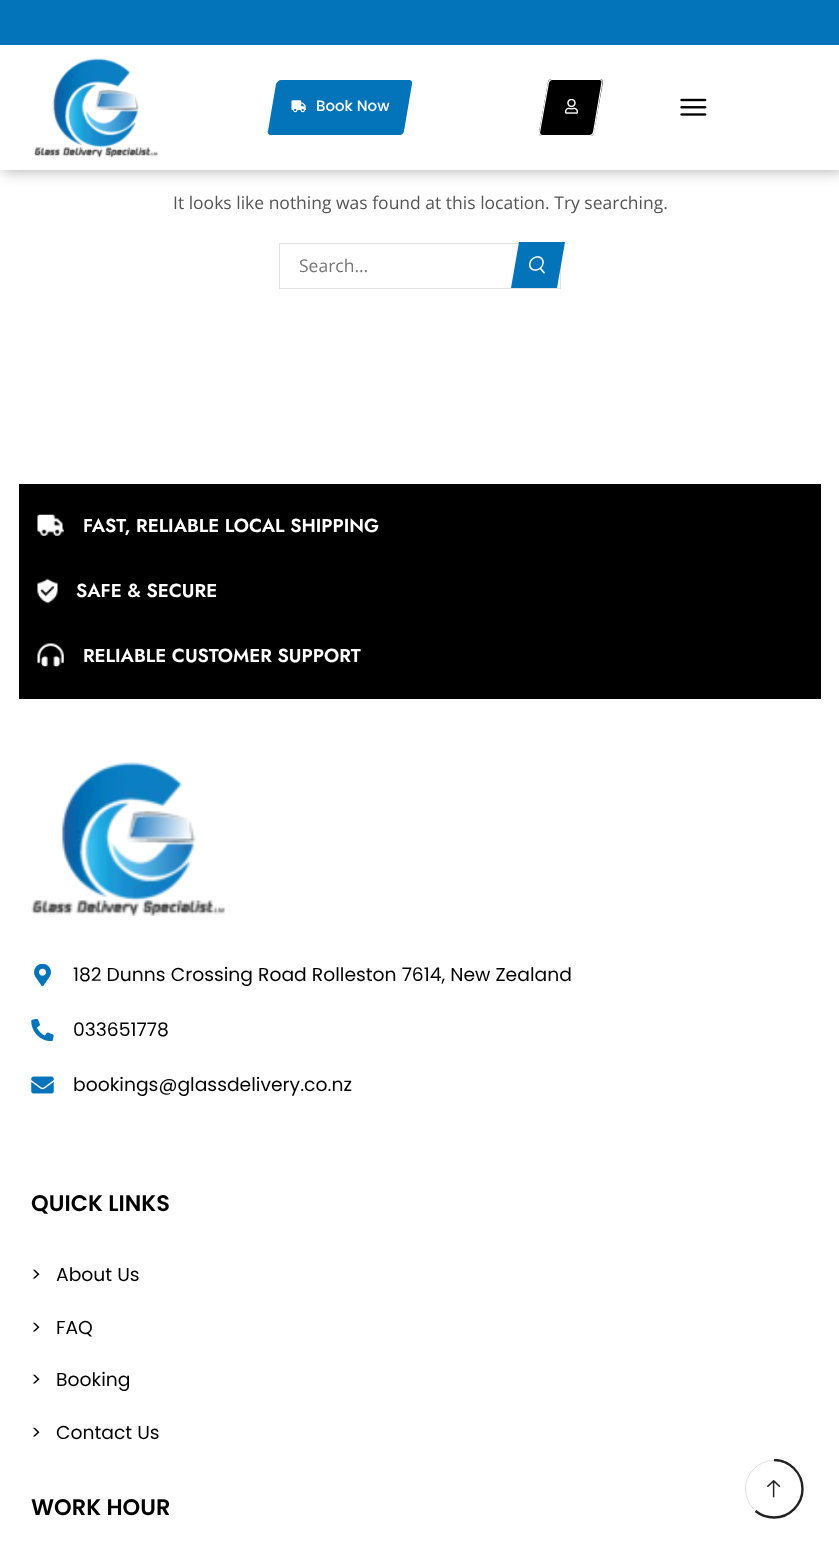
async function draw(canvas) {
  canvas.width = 839
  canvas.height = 1554
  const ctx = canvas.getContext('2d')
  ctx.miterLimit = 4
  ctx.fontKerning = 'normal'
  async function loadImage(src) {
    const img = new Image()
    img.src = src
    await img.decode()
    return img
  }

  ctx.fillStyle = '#fff'
  ctx.fillRect(0, 0, 839, 1554)
  ctx.fillStyle = '#00000059'
  ctx.filter = 'blur(7.5px)'
  ctx.beginPath()
  ctx.rect(3, 0, 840, 170)
  ctx.fill()
  ctx.filter = 'none'
  ctx.fillStyle = '#0374b9'
  ctx.fillRect(0, 0, 839, 45)
  ctx.fillStyle = '#fff'
  ctx.fillRect(0, 45, 839, 125)
  ctx.drawImage(await loadImage('image0.png'), 33, 58, 126, 100)
  ctx.fillStyle = '#0374b9'
  ctx.beginPath()
  ctx.moveTo(281, 80)
  ctx.lineTo(409, 80)
  ctx.bezierCurveTo(411, 80, 413, 82, 412, 84)
  ctx.lineTo(404, 131)
  ctx.bezierCurveTo(404, 133, 402, 135, 400, 135)
  ctx.lineTo(271, 135)
  ctx.bezierCurveTo(269, 135, 267, 133, 268, 131)
  ctx.lineTo(276, 84)
  ctx.bezierCurveTo(277, 82, 279, 80, 281, 80)
  ctx.closePath()
  ctx.fill()
  ctx.drawImage(await loadImage('image1.png'), 291, 100, 15, 13)
  ctx.font = '500 15px Poppins'
  ctx.fillStyle = '#fff'
  ctx.fillText('Book Now', 316, 111)
  ctx.fillStyle = '#000'
  ctx.beginPath()
  ctx.moveTo(552, 79)
  ctx.lineTo(600, 79)
  ctx.bezierCurveTo(602, 79, 603, 80, 603, 82)
  ctx.lineTo(594, 132)
  ctx.bezierCurveTo(594, 135, 592, 136, 590, 136)
  ctx.lineTo(542, 136)
  ctx.bezierCurveTo(540, 136, 539, 135, 539, 132)
  ctx.lineTo(548, 82)
  ctx.bezierCurveTo(548, 80, 550, 79, 552, 79)
  ctx.closePath()
  ctx.fill()
  ctx.beginPath()
  ctx.moveTo(552, 79.5)
  ctx.lineTo(599.5, 79.5)
  ctx.bezierCurveTo(601.5, 79.5, 602.5, 81, 602, 82.5)
  ctx.lineTo(593.5, 132.5)
  ctx.bezierCurveTo(593, 134, 591.5, 135.5, 589.5, 135.5)
  ctx.lineTo(542, 135.5)
  ctx.bezierCurveTo(540.5, 135.5, 539.5, 134, 539.5, 132.5)
  ctx.lineTo(548.5, 82.5)
  ctx.bezierCurveTo(549, 81, 550.5, 79.5, 552, 79.5)
  ctx.closePath()
  ctx.strokeStyle = '#fff'
  ctx.lineWidth = 1.2
  ctx.stroke()
  ctx.drawImage(await loadImage('image2.png'), 564, 99, 14, 15)
  ctx.drawImage(await loadImage('image3.png'), 680, 98, 27, 18)
  ctx.font = '17.5px Open Sans'
  ctx.fillStyle = '#555'
  ctx.fillText('It looks like nothing was found at this location. Try searching.', 173, 209)
  ctx.strokeStyle = '#e1e1e1'
  ctx.lineWidth = 1
  ctx.strokeRect(279.5, 243.5, 281, 45)
  ctx.fillStyle = '#757575'
  ctx.fillText('Search...', 299, 272)
  ctx.fillStyle = '#0374b9'
  ctx.beginPath()
  ctx.moveTo(519, 242)
  ctx.lineTo(565, 242)
  ctx.lineTo(557, 288)
  ctx.lineTo(511, 288)
  ctx.closePath()
  ctx.fill()
  ctx.drawImage(await loadImage('image4.png'), 529, 256, 16, 18)
  ctx.fillStyle = '#000'
  ctx.fillRect(19, 484, 802, 215)
  ctx.drawImage(await loadImage('image5.png'), 37, 514, 27, 22)
  ctx.font = '600 18.75px Jost'
  ctx.fillStyle = '#fff'
  ctx.fillText('FAST, RELIABLE LOCAL SHIPPING', 83, 532)
  ctx.drawImage(await loadImage('image6.png'), 37, 578, 21, 26)
  ctx.fillText('SAFE & SECURE', 76, 597)
  ctx.drawImage(await loadImage('image7.png'), 37, 643, 27, 25)
  ctx.fillText('RELIABLE CUSTOMER SUPPORT', 83, 662)
  ctx.drawImage(await loadImage('image8.png'), 31, 762, 195, 154)
  ctx.drawImage(await loadImage('image9.png'), 34, 964, 17, 22)
  ctx.font = '18.75px Poppins'
  ctx.fillStyle = '#000'
  ctx.fillText('182 Dunns Crossing Road Rolleston 7614, New Zealand', 73, 981)
  ctx.drawImage(await loadImage('image10.png'), 31, 1019, 23, 22)
  ctx.fillText('033651778', 73, 1036)
  ctx.drawImage(await loadImage('image11.png'), 31, 1076, 23, 18)
  ctx.fillText('bookings@glassdelivery.co.nz', 73, 1091)
  ctx.font = '600 22.5px Poppins'
  ctx.fillText('QUICK LINKS', 31, 1211)
  ctx.font = '18.75px Poppins'
  ctx.fillText('>', 31, 1281)
  ctx.fillText('About Us', 56, 1281)
  ctx.fillText('>', 31, 1334)
  ctx.fillText('FAQ', 56, 1334)
  ctx.fillText('>', 31, 1386)
  ctx.fillText('Booking', 56, 1386)
  ctx.fillText('>', 31, 1439)
  ctx.fillText('Contact Us', 56, 1439)
  ctx.font = '600 22.5px Poppins'
  ctx.fillText('WORK HOUR', 31, 1515)
  ctx.beginPath()
  ctx.arc(774, 1489, 28.5, 0, 2 * Math.PI)
  ctx.stroke()
  ctx.save()
  ctx.beginPath()
  ctx.rect(744, 1459, 60, 60)
  ctx.clip()
  ctx.beginPath()
  ctx.moveTo(774, 1460)
  ctx.bezierCurveTo(789.5, 1460, 802.5, 1473, 802.5, 1489)
  ctx.bezierCurveTo(802.5, 1504.5, 789.5, 1517.5, 774, 1517.5)
  ctx.bezierCurveTo(767, 1517.5, 760.5, 1515, 755.5, 1511)
  ctx.strokeStyle = '#222'
  ctx.lineWidth = 2.4
  ctx.stroke()
  ctx.restore()
  ctx.drawImage(await loadImage('image12.png'), 767, 1480, 14, 18)
}

draw(document.querySelector('canvas'))
